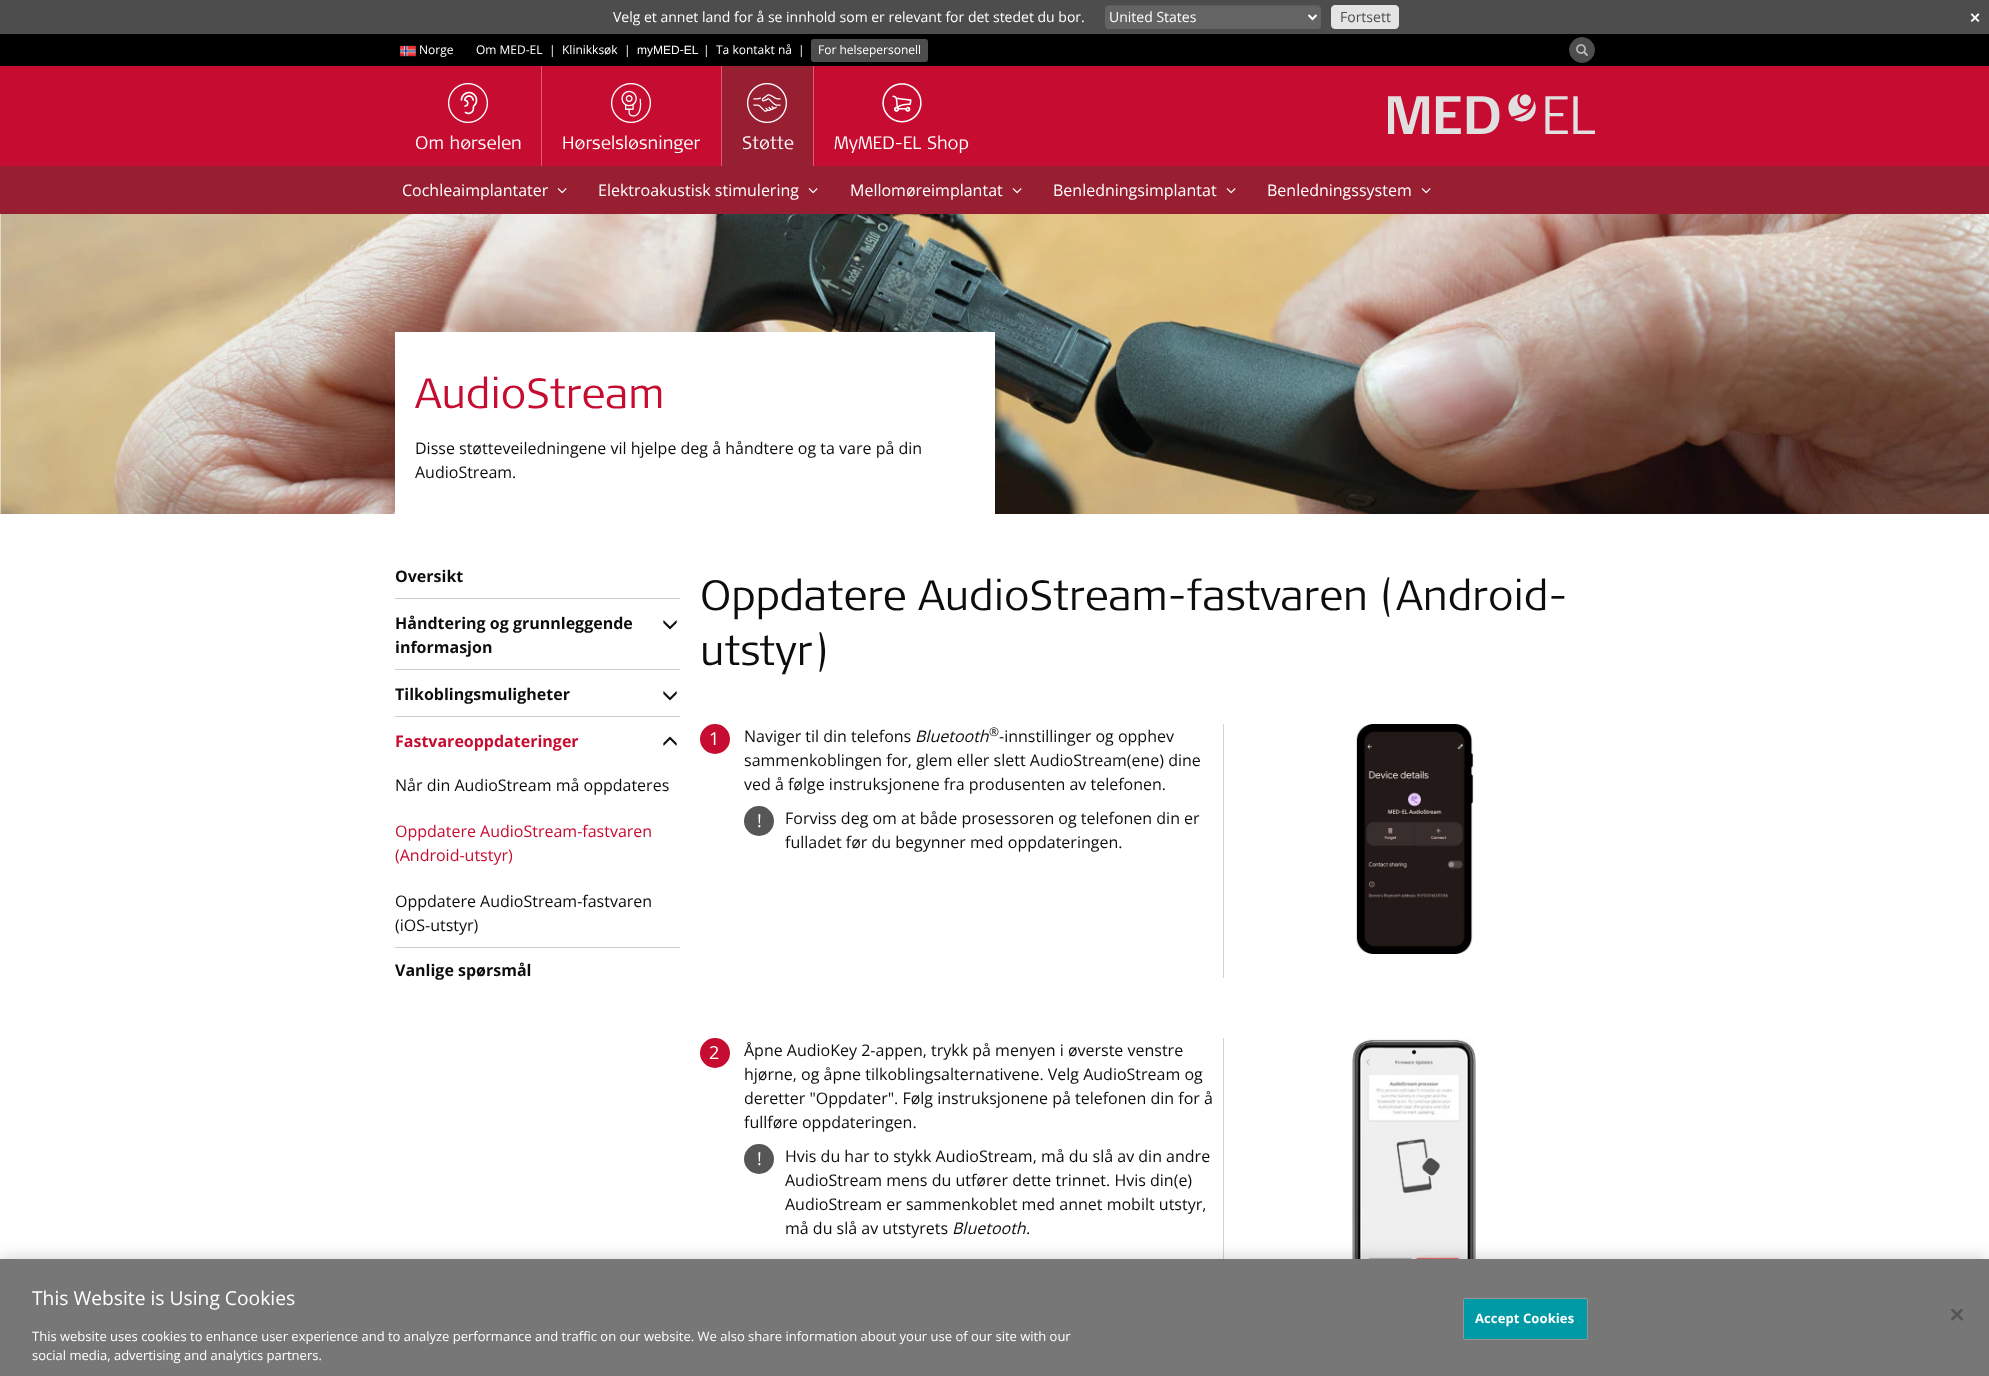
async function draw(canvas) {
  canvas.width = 1989
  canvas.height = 1376
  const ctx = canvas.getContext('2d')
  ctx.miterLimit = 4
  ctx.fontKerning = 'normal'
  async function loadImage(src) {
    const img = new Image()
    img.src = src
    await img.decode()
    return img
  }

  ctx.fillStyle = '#fff'
  ctx.fillRect(0, 0, 1989, 1376)
  ctx.fillStyle = '#4d4d4d'
  ctx.fillRect(0, 0, 1989, 34)
  ctx.font = '14px Open Sans'
  ctx.fillStyle = '#fff'
  ctx.fillText('Velg et annet land for å se innhold som er relevant for det stedet du bor.', 613, 22)
  ctx.fillStyle = '#646464'
  ctx.beginPath()
  ctx.roundRect(1105, 5, 216, 24, 4)
  ctx.fill()
  ctx.fillStyle = '#00000012'
  ctx.beginPath()
  ctx.moveTo(1109, 6)
  ctx.lineTo(1317, 6)
  ctx.bezierCurveTo(1319, 6, 1321, 8, 1321, 10)
  ctx.bezierCurveTo(1321, 7, 1320, 5, 1317, 5)
  ctx.lineTo(1107, 5)
  ctx.bezierCurveTo(1105, 6, 1105, 8, 1105, 10)
  ctx.bezierCurveTo(1105, 8, 1107, 6, 1109, 6)
  ctx.closePath()
  ctx.fill()
  ctx.beginPath()
  ctx.moveTo(1308.5, 15)
  ctx.lineTo(1312.5, 19)
  ctx.lineTo(1316.5, 15)
  ctx.strokeStyle = '#fff'
  ctx.lineWidth = 2
  ctx.stroke()
  ctx.fillStyle = '#fff'
  ctx.fillText('United States', 1109, 22)
  ctx.fillStyle = '#e4e4e4'
  ctx.beginPath()
  ctx.roundRect(1331.5, 5.5, 67, 23, 3.5)
  ctx.fill()
  ctx.strokeStyle = '#e4e4e4'
  ctx.lineWidth = 1
  ctx.stroke()
  ctx.fillStyle = '#4d4d4d'
  ctx.fillText('Fortsett', 1340, 22)
  ctx.font = 'bold 14px DejaVu Sans'
  ctx.fillStyle = '#fff'
  ctx.fillText('✕', 1969, 23)
  ctx.fillStyle = '#000'
  ctx.fillRect(0, 34, 1989, 32)
  ctx.drawImage(await loadImage('image0.png'), 400, 45, 16, 12)
  ctx.font = '12px Open Sans'
  ctx.fillStyle = '#fff'
  ctx.fillText('Norge', 419, 54)
  ctx.fillText('Om MED-EL', 476, 54)
  ctx.fillText('|', 549, 54)
  ctx.fillText('Klinikksøk', 562, 54)
  ctx.fillText('|', 624, 54)
  ctx.font = '12px Liberation Sans'
  ctx.fillText('myMED‑EL', 637, 54)
  ctx.font = '12px Open Sans'
  ctx.fillText('|', 703, 54)
  ctx.fillText('Ta kontakt nå', 716, 54)
  ctx.fillText('|', 798, 54)
  ctx.fillStyle = '#4d4d4d'
  ctx.beginPath()
  ctx.roundRect(811, 39, 117, 23, 3)
  ctx.fill()
  ctx.fillStyle = '#fff'
  ctx.fillText('For helsepersonell', 818, 54)
  ctx.fillStyle = '#4d4d4d'
  ctx.beginPath()
  ctx.arc(1582, 50, 12.5, 0, 2 * Math.PI)
  ctx.fill()
  ctx.strokeStyle = '#4d4d4d'
  ctx.stroke()
  ctx.drawImage(await loadImage('image1.png'), 1576, 44, 12, 12)
  ctx.fillStyle = '#c60c30'
  ctx.fillRect(0, 66, 1989, 100)
  ctx.drawImage(await loadImage('image2.png'), 1388, 94, 207, 40)
  ctx.fillStyle = '#e05872'
  ctx.fillRect(541, 66, 1, 100)
  ctx.drawImage(await loadImage('image3.png'), 448, 83, 40, 40)
  ctx.font = '300 18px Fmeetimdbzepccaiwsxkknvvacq'
  ctx.fillStyle = '#fff'
  ctx.fillText('Om hørselen', 415, 149)
  ctx.fillStyle = '#e05872'
  ctx.fillRect(721, 66, 1, 100)
  ctx.drawImage(await loadImage('image4.png'), 611, 83, 40, 40)
  ctx.fillStyle = '#fff'
  ctx.fillText('Hørselsløsninger', 562, 149)
  ctx.fillStyle = '#e05872'
  ctx.fillRect(813, 66, 1, 100)
  ctx.fillStyle = '#981e32'
  ctx.fillRect(722, 66, 91, 100)
  ctx.drawImage(await loadImage('image5.png'), 747, 83, 40, 40)
  ctx.fillStyle = '#fff'
  ctx.fillText('Støtte', 742, 149)
  ctx.drawImage(await loadImage('image6.png'), 882, 83, 40, 40)
  ctx.fillText('MyMED-EL Shop', 834, 149)
  ctx.fillStyle = '#981e32'
  ctx.fillRect(0, 166, 1989, 48)
  ctx.font = '16px Open Sans'
  ctx.fillStyle = '#fff'
  ctx.fillText('Cochleaimplantater', 402, 196)
  ctx.drawImage(await loadImage('image7.png'), 557, 188, 10, 6)
  ctx.fillText('Elektroakustisk stimulering', 598, 196)
  ctx.drawImage(await loadImage('image7.png'), 808, 188, 10, 6)
  ctx.fillText('Mellomøreimplantat', 850, 196)
  ctx.drawImage(await loadImage('image7.png'), 1012, 188, 10, 6)
  ctx.fillText('Benledningsimplantat', 1053, 196)
  ctx.drawImage(await loadImage('image7.png'), 1226, 188, 10, 6)
  ctx.fillText('Benledningssystem', 1267, 196)
  ctx.drawImage(await loadImage('image7.png'), 1421, 188, 10, 6)
  ctx.drawImage(await loadImage('image8.png'), 0, 214, 1989, 300)
  ctx.fillRect(395, 332, 600, 182)
  ctx.font = '300 42px Fmeetimdbzepccaiwsxkknvvacq'
  ctx.fillStyle = '#c60c30'
  ctx.fillText('AudioStream', 415, 408)
  ctx.font = '16px Open Sans'
  ctx.fillStyle = '#0d0d0d'
  ctx.fillText('Disse støtteveiledningene vil hjelpe deg å håndtere og ta vare på din', 415, 454)
  ctx.fillText('AudioStream.', 415, 478)
  ctx.fillStyle = '#ccc'
  ctx.fillRect(395, 598, 285, 1)
  ctx.font = 'bold 16px Open Sans'
  ctx.fillStyle = '#0d0d0d'
  ctx.fillText('Oversikt', 395, 582)
  ctx.fillStyle = '#ccc'
  ctx.fillRect(395, 669, 285, 1)
  ctx.fillStyle = '#0d0d0d'
  ctx.fillText('Håndtering og grunnleggende', 395, 629)
  ctx.fillText('informasjon', 395, 653)
  ctx.drawImage(await loadImage('image9.png'), 663, 620, 14, 10)
  ctx.fillStyle = '#ccc'
  ctx.fillRect(395, 716, 285, 1)
  ctx.save()
  ctx.beginPath()
  ctx.rect(395, 672, 260, 44)
  ctx.clip()
  ctx.fillStyle = '#0d0d0d'
  ctx.fillText('Tilkoblingsmuligheter', 395, 700)
  ctx.restore()
  ctx.drawImage(await loadImage('image9.png'), 663, 691, 14, 10)
  ctx.fillStyle = '#c60c30'
  ctx.fillText('Fastvareoppdateringer', 395, 747)
  ctx.drawImage(await loadImage('image10.png'), 663, 736, 14, 10)
  ctx.font = '16px Open Sans'
  ctx.fillStyle = '#0d0d0d'
  ctx.fillText('Når din AudioStream må oppdateres', 395, 791)
  ctx.fillStyle = '#c60c30'
  ctx.fillText('Oppdatere AudioStream-fastvaren', 395, 837)
  ctx.fillText('(Android-utstyr)', 395, 861)
  ctx.fillStyle = '#0d0d0d'
  ctx.fillText('Oppdatere AudioStream-fastvaren', 395, 907)
  ctx.fillText('(iOS-utstyr)', 395, 931)
  ctx.fillStyle = '#ccc'
  ctx.fillRect(395, 947, 285, 1)
  ctx.font = 'bold 16px Open Sans'
  ctx.fillStyle = '#0d0d0d'
  ctx.fillText('Vanlige spørsmål', 395, 976)
  ctx.font = '300 42px Fmeetimdbzepccaiwsxkknvvacq'
  ctx.fillText('Oppdatere AudioStream-fastvaren (Android-', 700, 610)
  ctx.fillText('utstyr)', 700, 665)
  ctx.fillStyle = '#c60c30'
  ctx.beginPath()
  ctx.arc(715, 739, 15, 0, 2 * Math.PI)
  ctx.fill()
  ctx.font = '18px Open Sans'
  ctx.fillStyle = '#fff'
  ctx.fillText('1', 709, 745)
  ctx.font = '16px Open Sans'
  ctx.fillStyle = '#0d0d0d'
  ctx.fillText('Naviger til din telefons', 744, 742)
  ctx.font = 'italic 16px Open Sans'
  ctx.fillText('Bluetooth', 915, 742)
  ctx.font = '12px Open Sans'
  ctx.fillText('®', 989, 736)
  ctx.font = '16px Open Sans'
  ctx.fillText('-innstillinger og opphev', 999, 742)
  ctx.fillText('sammenkoblingen for, glem eller slett AudioStream(ene) dine', 744, 766)
  ctx.fillText('ved å følge instruksjonene fra produsenten av telefonen.', 744, 790)
  ctx.fillStyle = '#575656'
  ctx.beginPath()
  ctx.arc(759, 821, 15, 0, 2 * Math.PI)
  ctx.fill()
  ctx.font = '18px Open Sans'
  ctx.fillStyle = '#fff'
  ctx.fillText('!', 757, 827)
  ctx.font = '16px Open Sans'
  ctx.fillStyle = '#0d0d0d'
  ctx.fillText('Forviss deg om at både prosessoren og telefonen din er', 785, 824)
  ctx.fillText('fulladet før du begynner med oppdateringen.', 785, 848)
  ctx.fillStyle = '#d1d4d3'
  ctx.fillRect(1223, 724, 1, 254)
  ctx.drawImage(await loadImage('image11.png'), 1356, 724, 118, 230)
  ctx.fillStyle = '#c60c30'
  ctx.beginPath()
  ctx.arc(715, 1053, 15, 0, 2 * Math.PI)
  ctx.fill()
  ctx.font = '18px Open Sans'
  ctx.fillStyle = '#fff'
  ctx.fillText('2', 709, 1059)
  ctx.font = '16px Open Sans'
  ctx.fillStyle = '#0d0d0d'
  ctx.fillText('Åpne AudioKey 2-appen, trykk på menyen i øverste venstre', 744, 1056)
  ctx.fillText('hjørne, og åpne tilkoblingsalternativene. Velg AudioStream og', 744, 1080)
  ctx.fillText('deretter "Oppdater". Følg instruksjonene på telefonen din for å', 744, 1104)
  ctx.fillText('fullføre oppdateringen.', 744, 1128)
  ctx.fillStyle = '#575656'
  ctx.beginPath()
  ctx.arc(759, 1159, 15, 0, 2 * Math.PI)
  ctx.fill()
  ctx.font = '18px Open Sans'
  ctx.fillStyle = '#fff'
  ctx.fillText('!', 757, 1165)
  ctx.font = '16px Open Sans'
  ctx.fillStyle = '#0d0d0d'
  ctx.fillText('Hvis du har to stykk AudioStream, må du slå av din andre', 785, 1162)
  ctx.fillText('AudioStream mens du utfører dette trinnet. Hvis din(e)', 785, 1186)
  ctx.fillText('AudioStream er sammenkoblet med annet mobilt utstyr,', 785, 1210)
  ctx.fillText('må du slå av utstyrets', 785, 1234)
  ctx.font = 'italic 16px Open Sans'
  ctx.fillText('Bluetooth', 952, 1234)
  ctx.font = '16px Open Sans'
  ctx.fillText('.', 1026, 1234)
  ctx.fillStyle = '#d1d4d3'
  ctx.fillRect(1223, 1038, 1, 221)
  ctx.drawImage(await loadImage('image12.png'), 1352, 1038, 124, 221)
  ctx.fillStyle = '#00000033'
  ctx.filter = 'blur(9px)'
  ctx.beginPath()
  ctx.rect(0, 1259, 1989, 117)
  ctx.fill()
  ctx.filter = 'none'
  ctx.fillStyle = '#777'
  ctx.fillRect(0, 1259, 1989, 117)
  ctx.font = '19.25px Open Sans'
  ctx.fillStyle = '#fff'
  ctx.fillText('This Website is Using Cookies', 32, 1305)
  ctx.font = '13px Open Sans'
  ctx.fillText('This website uses cookies to enhance user experience and to analyze performance and traffic on our website. We also share information about your use of our site with our', 32, 1341)
  ctx.fillText('social media, advertising and analytics partners.', 32, 1360)
  ctx.fillStyle = '#009aa6'
  ctx.beginPath()
  ctx.roundRect(1463.5, 1298.5, 124, 41, 1.5)
  ctx.fill()
  ctx.strokeStyle = '#979594'
  ctx.stroke()
  ctx.letterSpacing = '0.1px'
  ctx.font = 'bold 13px Open Sans'
  ctx.fillStyle = '#fff'
  ctx.fillText('Accept Cookies', 1475, 1323)
  ctx.drawImage(await loadImage('image13.png'), 1951, 1309, 12, 12)
}

draw(document.querySelector('canvas'))
